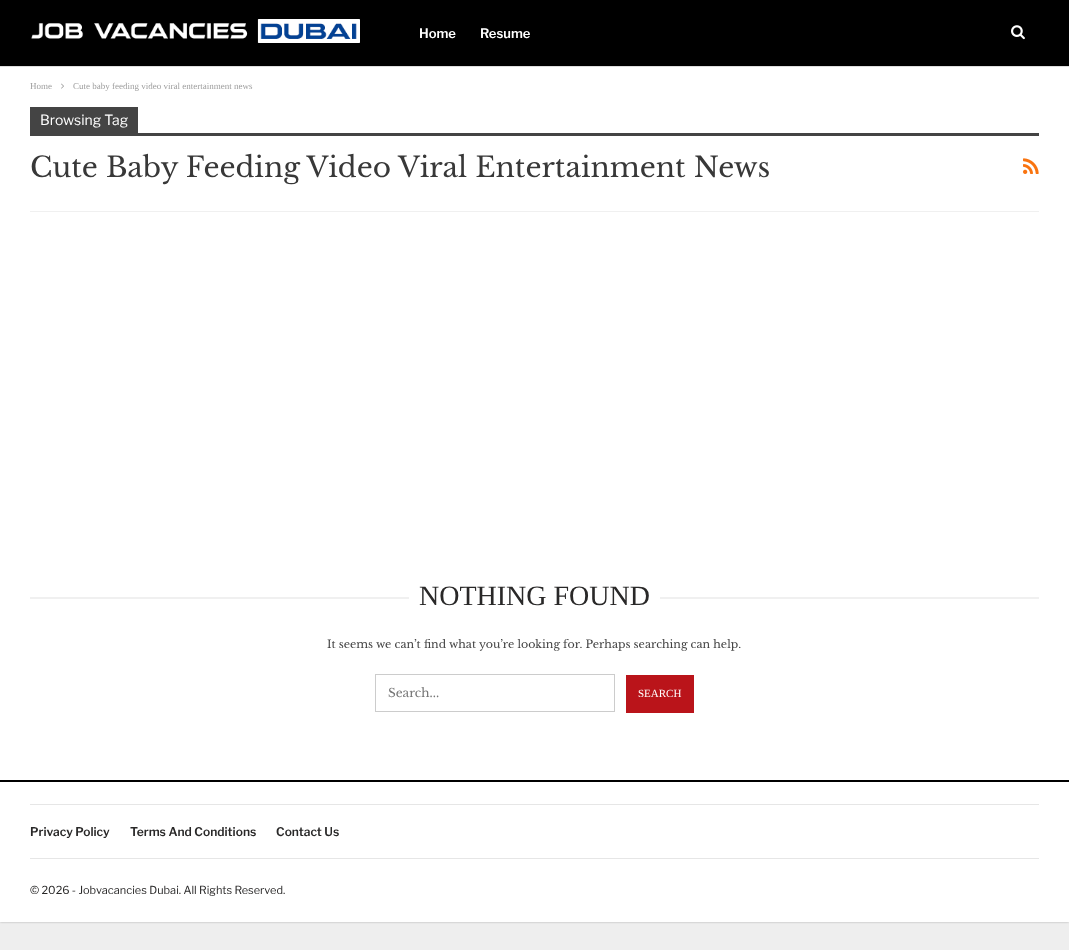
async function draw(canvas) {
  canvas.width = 1069
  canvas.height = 950
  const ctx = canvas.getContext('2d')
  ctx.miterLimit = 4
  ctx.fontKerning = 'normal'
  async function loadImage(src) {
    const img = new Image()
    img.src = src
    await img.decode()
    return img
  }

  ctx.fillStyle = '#eee'
  ctx.fillRect(0, 0, 1069, 950)
  ctx.fillStyle = '#00000045'
  ctx.filter = 'blur(1px)'
  ctx.beginPath()
  ctx.rect(0, 0, 1069, 922)
  ctx.fill()
  ctx.filter = 'none'
  ctx.fillStyle = '#fff'
  ctx.fillRect(0, 67, 1069, 855)
  ctx.fillStyle = '#000'
  ctx.fillRect(0, 0, 1069, 66)
  ctx.fillStyle = '#dedede'
  ctx.fillRect(0, 66, 1069, 1)
  ctx.drawImage(await loadImage('image0.png'), 31, 19, 329, 24)
  ctx.font = '600 13px Libre Franklin'
  ctx.fillStyle = '#fff'
  ctx.fillText('Home', 419, 38)
  ctx.fillText('Resume', 480, 38)
  ctx.drawImage(await loadImage('image1.png'), 1011, 25, 14, 15)
  ctx.font = '9px Liberation Serif'
  ctx.fillStyle = '#9e9e9e'
  ctx.fillText('Home', 30, 89)
  ctx.drawImage(await loadImage('image2.png'), 61, 83, 3, 6)
  ctx.fillText('Cute baby feeding video viral entertainment news', 73, 89)
  ctx.fillStyle = '#f0f0f0'
  ctx.fillRect(30, 211, 1009, 1)
  ctx.fillStyle = '#444'
  ctx.fillRect(30, 107, 108, 26)
  ctx.font = '14px Libre Franklin'
  ctx.fillStyle = '#fff'
  ctx.fillText('Browsing Tag', 40, 125)
  ctx.fillStyle = '#444'
  ctx.fillRect(30, 133, 1009, 3)
  ctx.font = '28px Libre Baskerville'
  ctx.fillStyle = '#383838'
  ctx.fillText('Cute Baby Feeding Video Viral Entertainment News', 30, 177)
  ctx.drawImage(await loadImage('image3.png'), 1023, 158, 16, 16)
  ctx.fillStyle = '#f0f0f0'
  ctx.fillRect(30, 597, 1009, 2)
  ctx.fillStyle = '#fff'
  ctx.fillRect(409, 597, 251, 2)
  ctx.font = '28px Liberation Serif'
  ctx.fillStyle = '#292828'
  ctx.fillText('NOTHING FOUND', 419, 605)
  ctx.font = '11px Libre Baskerville'
  ctx.fillStyle = '#434343'
  ctx.fillText('It seems we can’t find what you’re looking for. Perhaps searching can help.', 327, 648)
  ctx.strokeStyle = '#ccc'
  ctx.strokeRect(375.5, 674.5, 239, 37)
  ctx.font = '12px Libre Baskerville'
  ctx.fillStyle = '#757575'
  ctx.fillText('Search...', 388, 697)
  ctx.fillStyle = '#ba141a'
  ctx.fillRect(626, 675, 68, 38)
  ctx.font = '11px Liberation Serif'
  ctx.fillStyle = '#fff'
  ctx.fillText('SEARCH', 638, 697)
  ctx.fillStyle = '#000'
  ctx.fillRect(0, 780, 1069, 2)
  ctx.fillStyle = '#e6e6e6'
  ctx.fillRect(30, 804, 1009, 1)
  ctx.fillRect(30, 858, 1009, 1)
  ctx.font = '600 12px Libre Franklin'
  ctx.fillStyle = '#292828'
  ctx.fillText('Privacy Policy', 30, 836)
  ctx.fillText('Terms And Conditions', 130, 836)
  ctx.fillText('Contact Us', 276, 836)
  ctx.font = '11px Libre Franklin'
  ctx.fillText('© 2026 - Jobvacancies Dubai. All Rights Reserved.', 30, 894)
}

draw(document.querySelector('canvas'))
